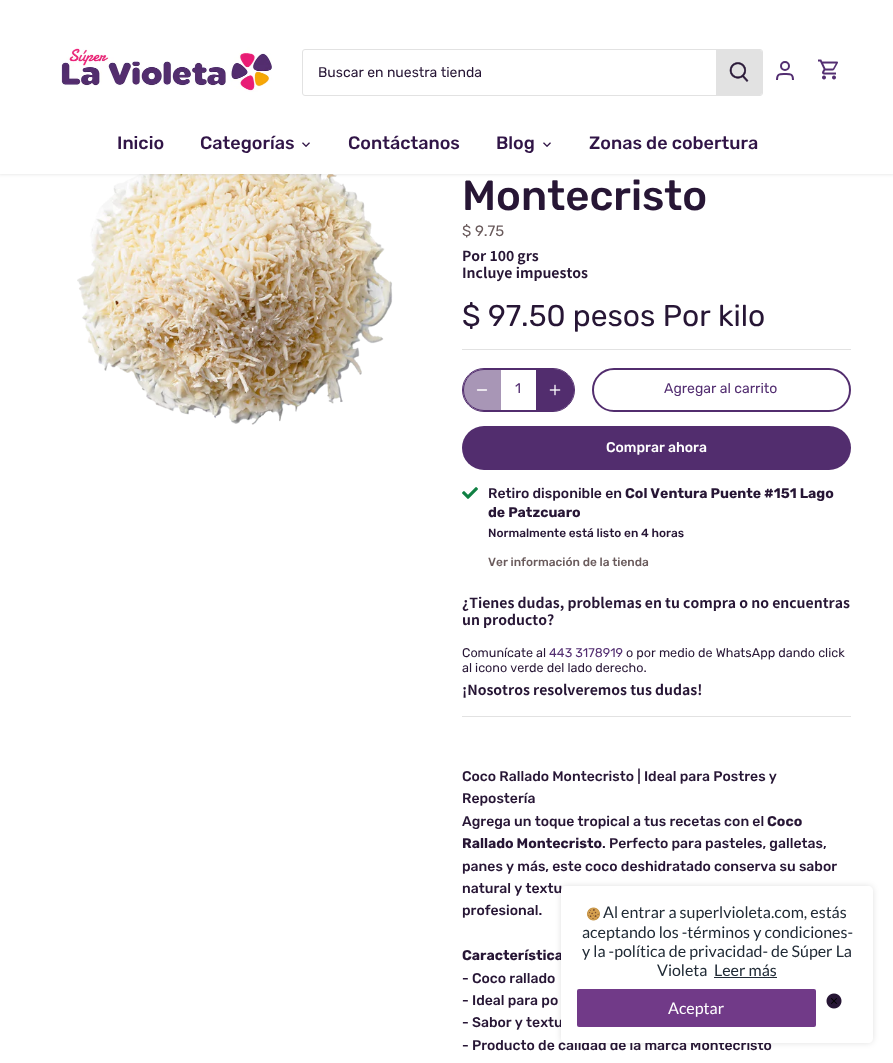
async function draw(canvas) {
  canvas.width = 893
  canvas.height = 1063
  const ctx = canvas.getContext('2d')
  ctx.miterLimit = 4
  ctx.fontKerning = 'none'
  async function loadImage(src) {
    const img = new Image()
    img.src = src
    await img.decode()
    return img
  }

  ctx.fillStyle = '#fff'
  ctx.fillRect(0, 0, 893, 1063)
  ctx.drawImage(await loadImage('image4.png'), 77, 174, 316, 251)
  ctx.fillStyle = '#00000014'
  ctx.filter = 'blur(1.5px)'
  ctx.beginPath()
  ctx.rect(-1, -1, 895, 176)
  ctx.fill()
  ctx.filter = 'none'
  ctx.fillStyle = '#fff'
  ctx.fillRect(0, 0, 893, 174)
  ctx.drawImage(await loadImage('image0.png'), 61, 45, 211, 47)
  ctx.beginPath()
  ctx.roundRect(302.5, 49.5, 460, 46, 2.5)
  ctx.strokeStyle = '#e2e2e2'
  ctx.stroke()
  ctx.font = '14px Rubik'
  ctx.fillStyle = '#271635'
  ctx.fillText('Buscar en nuestra tienda', 318, 77)
  ctx.fillStyle = '#e2e2e2'
  ctx.beginPath()
  ctx.roundRect(716, 50, 46, 45, [0, 2, 2, 0])
  ctx.fill()
  ctx.drawImage(await loadImage('image1.png'), 729, 62, 20, 20)
  ctx.beginPath()
  ctx.arc(785, 66, 4, 0, 2 * Math.PI)
  ctx.strokeStyle = '#532e71'
  ctx.lineWidth = 2
  ctx.stroke()
  ctx.beginPath()
  ctx.moveTo(793, 80)
  ctx.bezierCurveTo(793, 73.5, 790.5, 74, 785, 74)
  ctx.bezierCurveTo(779.5, 74, 777, 73.5, 777, 80)
  ctx.stroke()
  ctx.drawImage(await loadImage('image2.png'), 818, 59, 20, 21)
  ctx.font = '500 18px Rubik'
  ctx.fillStyle = '#311547'
  ctx.fillText('Inicio', 117, 149)
  ctx.fillText('Categorías', 200, 149)
  ctx.drawImage(await loadImage('image3.png'), 302, 142, 8, 5)
  ctx.fillText('Contáctanos', 348, 149)
  ctx.fillText('Blog', 496, 149)
  ctx.drawImage(await loadImage('image3.png'), 543, 142, 8, 5)
  ctx.fillText('Zonas de cobertura', 589, 149)
  ctx.font = '500 42px Rubik'
  ctx.fillStyle = '#271635'
  ctx.fillText('Montecristo', 462, 210)
  ctx.font = '15px Rubik'
  ctx.fillStyle = '#6a5b5c'
  ctx.fillText('$ 9.75', 462, 236)
  ctx.font = 'bold 14px Noto Sans JP'
  ctx.fillStyle = '#271635'
  ctx.fillText('Por 100 grs', 462, 261)
  ctx.fillText('Incluye impuestos', 462, 278)
  ctx.font = '30px Rubik'
  ctx.fillText('$ 97.50 pesos Por kilo', 462, 326)
  ctx.fillStyle = '#e2e2e2'
  ctx.fillRect(462, 349, 389, 1)
  ctx.beginPath()
  ctx.roundRect(463.5, 369.5, 110, 41, 20.5)
  ctx.strokeStyle = '#522d6e'
  ctx.lineWidth = 1
  ctx.stroke()
  ctx.beginPath()
  ctx.roundRect(462.5, 368.5, 112, 43, 21.5)
  ctx.stroke()
  ctx.fillStyle = '#522d6e80'
  ctx.beginPath()
  ctx.roundRect(463, 369, 38, 42, [21, 0, 0, 21])
  ctx.fill()
  ctx.beginPath()
  ctx.moveTo(477.5, 390)
  ctx.lineTo(486.5, 390)
  ctx.strokeStyle = '#fff'
  ctx.lineWidth = 1.3
  ctx.lineCap = 'round'
  ctx.lineJoin = 'round'
  ctx.stroke()
  ctx.font = '14px Rubik'
  ctx.fillStyle = '#532e71'
  ctx.fillText('1', 515, 393)
  ctx.fillStyle = '#522d6e'
  ctx.beginPath()
  ctx.roundRect(536, 369, 38, 42, [0, 21, 21, 0])
  ctx.fill()
  ctx.drawImage(await loadImage('image5.png'), 549, 384, 12, 12)
  ctx.beginPath()
  ctx.roundRect(593, 369, 257, 42, 21)
  ctx.strokeStyle = '#522d6e'
  ctx.lineWidth = 2
  ctx.lineJoin = 'miter'
  ctx.stroke()
  ctx.fillStyle = '#532e71'
  ctx.fillText('Agregar al carrito', 664, 393)
  ctx.fillStyle = '#522d6e'
  ctx.beginPath()
  ctx.roundRect(462, 426, 389, 44, 22)
  ctx.fill()
  ctx.font = '500 14px Rubik'
  ctx.fillStyle = '#fff'
  ctx.fillText('Comprar ahora', 606, 452)
  ctx.drawImage(await loadImage('image6.png'), 462, 487, 16, 12)
  ctx.fillStyle = '#271635'
  ctx.fillText('Retiro disponible en', 488, 498)
  ctx.font = 'bold 14px Rubik'
  ctx.fillText('Col Ventura Puente #151 Lago', 625, 498)
  ctx.fillText('de Patzcuaro', 488, 517)
  ctx.font = '500 11.9px Rubik'
  ctx.fillText('Normalmente está listo en 4 horas', 488, 537)
  ctx.fillStyle = '#6a5b5c'
  ctx.fillText('Ver información de la tienda', 488, 566)
  ctx.font = 'bold 14px Noto Sans JP'
  ctx.fillStyle = '#271635'
  ctx.fillText('¿Tienes dudas, problemas en tu compra o no encuentras', 462, 608)
  ctx.fillText('un producto?', 462, 625)
  ctx.font = '12.6px Rubik'
  ctx.fillText('Comunícate al', 462, 657)
  ctx.fillStyle = '#532e71'
  ctx.fillText('443 3178919', 549, 657)
  ctx.fillStyle = '#271635'
  ctx.fillText('o por medio de WhatsApp dando click', 626, 657)
  ctx.fillText('al icono verde del lado derecho.', 462, 672)
  ctx.font = 'bold 14px Noto Sans JP'
  ctx.fillText('¡Nosotros resolveremos tus dudas!', 462, 695)
  ctx.fillStyle = '#e2e2e2'
  ctx.fillRect(462, 716, 389, 1)
  ctx.font = '500 14px Rubik'
  ctx.fillStyle = '#271635'
  ctx.fillText('Coco Rallado Montecristo | Ideal para Postres y', 462, 781)
  ctx.fillText('Repostería', 462, 803)
  ctx.fillText('Agrega un toque tropical a tus recetas con el', 462, 826)
  ctx.font = 'bold 14px Rubik'
  ctx.fillText('Coco', 767, 826)
  ctx.fillText('Rallado Montecristo', 462, 848)
  ctx.font = '500 14px Rubik'
  ctx.fillText('. Perfecto para pasteles, galletas,', 602, 848)
  ctx.fillText('panes y más, este coco deshidratado conserva su sabor', 462, 871)
  ctx.fillText('natural y textu', 462, 893)
  ctx.fillText('profesional.', 462, 915)
  ctx.font = 'bold 14px Rubik'
  ctx.fillText('Característica', 462, 960)
  ctx.font = '500 14px Rubik'
  ctx.fillText('- Coco rallado', 462, 983)
  ctx.fillText('- Ideal para po', 462, 1005)
  ctx.fillText('- Sabor y textu', 462, 1027)
  ctx.fillText('- Producto de calidad de la marca Montecristo', 462, 1050)
  ctx.fillStyle = '#fff'
  ctx.beginPath()
  ctx.roundRect(561, 886, 312, 157, 5)
  ctx.fill()
  ctx.save()
  ctx.beginPath()
  ctx.moveTo(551, 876)
  ctx.lineTo(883, 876)
  ctx.lineTo(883, 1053)
  ctx.lineTo(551, 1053)
  ctx.closePath()
  ctx.moveTo(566, 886)
  ctx.lineTo(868, 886)
  ctx.bezierCurveTo(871, 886, 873, 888, 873, 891)
  ctx.lineTo(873, 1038)
  ctx.bezierCurveTo(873, 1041, 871, 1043, 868, 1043)
  ctx.lineTo(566, 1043)
  ctx.bezierCurveTo(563, 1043, 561, 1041, 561, 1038)
  ctx.lineTo(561, 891)
  ctx.bezierCurveTo(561, 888, 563, 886, 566, 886)
  ctx.closePath()
  ctx.clip('evenodd')
  ctx.fillStyle = '#0000001f'
  ctx.filter = 'blur(3px)'
  ctx.beginPath()
  ctx.roundRect(561, 886, 312, 157, 5)
  ctx.fill()
  ctx.filter = 'none'
  ctx.restore()
  ctx.drawImage(await loadImage('image7.png'), 587, 907, 13, 14)
  ctx.font = '16px Lato'
  ctx.fillStyle = '#212b36'
  ctx.fillText('Al entrar a superlvioleta.com, estás', 603, 918)
  ctx.fillText('aceptando los -términos y condiciones-', 582, 938)
  ctx.fillText('y la -política de privacidad- de Súper La', 582, 957)
  ctx.fillText('Violeta', 657, 976)
  ctx.fillText('Leer más', 714, 976)
  ctx.fillRect(714, 977, 63, 1)
  ctx.fillStyle = '#713a88'
  ctx.beginPath()
  ctx.roundRect(577, 989, 239, 38, 2)
  ctx.fill()
  ctx.fillStyle = '#fff'
  ctx.fillText('Aceptar', 668, 1014)
  ctx.drawImage(await loadImage('image8.png'), 826, 993, 16, 16)
}

draw(document.querySelector('canvas'))
